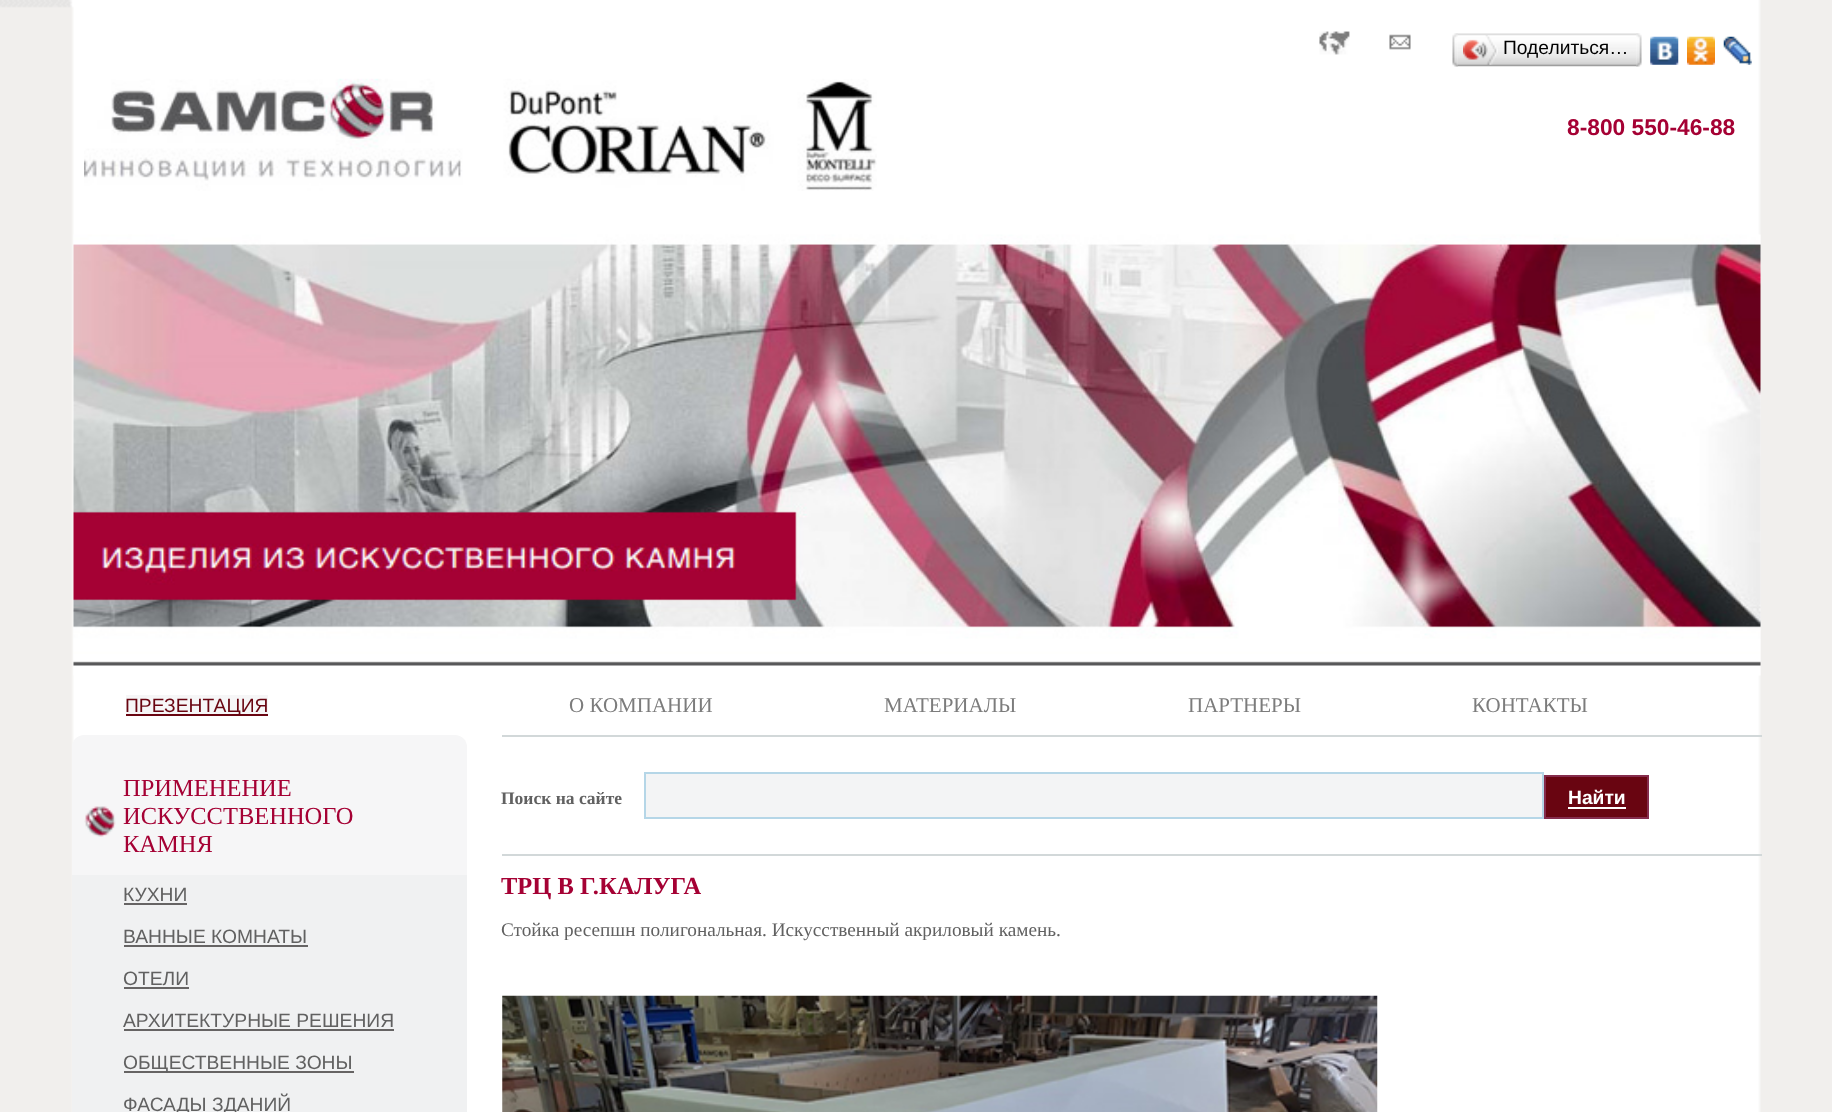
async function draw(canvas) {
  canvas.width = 1832
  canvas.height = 1112
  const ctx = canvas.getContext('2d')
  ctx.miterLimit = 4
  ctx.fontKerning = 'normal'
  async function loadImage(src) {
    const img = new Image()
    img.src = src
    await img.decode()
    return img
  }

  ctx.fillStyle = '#fff'
  ctx.fillRect(0, 0, 1832, 1112)
  ctx.drawImage(await loadImage('image0.png'), 0, 0, 1832, 1112)
  ctx.drawImage(await loadImage('image1.png'), 1319, 31, 31, 24)
  ctx.drawImage(await loadImage('image2.png'), 1389, 34, 22, 16)
  ctx.drawImage(await loadImage('image3.png'), 1457, 33, 180, 34)
  ctx.drawImage(await loadImage('image4.png'), 1452, 33, 6, 34)
  ctx.drawImage(await loadImage('image5.png'), 1463, 35, 35, 30)
  ctx.font = '19.25px Liberation Sans'
  ctx.fillStyle = '#000'
  ctx.fillText('Поделиться…', 1503, 54)
  ctx.drawImage(await loadImage('image6.png'), 1636, 33, 6, 34)
  ctx.drawImage(await loadImage('image7.png'), 1650, 36, 29, 29)
  ctx.drawImage(await loadImage('image8.png'), 1687, 36, 28, 29)
  ctx.drawImage(await loadImage('image9.png'), 1723, 36, 29, 29)
  ctx.drawImage(await loadImage('image10.png'), 84, 78, 793, 113)
  ctx.font = 'bold 22.75px Liberation Sans'
  ctx.fillStyle = '#a50134'
  ctx.fillText('8-800 550-46-88', 1567, 135)
  ctx.drawImage(await loadImage('image11.png'), 73, 234, 1688, 442)
  ctx.fillStyle = '#f6f6f7'
  ctx.beginPath()
  ctx.roundRect(72, 735, 395, 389, 12)
  ctx.fill()
  ctx.fillRect(126, 695, 142, 19)
  ctx.fillStyle = '#690511'
  ctx.fillRect(126, 714, 142, 2)
  ctx.font = '19.25px Liberation Sans'
  ctx.fillText('ПРЕЗЕНТАЦИЯ', 125, 712)
  ctx.drawImage(await loadImage('image12.png'), 84, 806, 32, 31)
  ctx.font = '24.5px Liberation Serif'
  ctx.fillStyle = '#a50134'
  ctx.fillText('ПРИМЕНЕНИЕ', 123, 796)
  ctx.fillText('ИСКУССТВЕННОГО', 123, 824)
  ctx.fillText('КАМНЯ', 123, 852)
  ctx.fillStyle = '#f0f1f2'
  ctx.fillRect(72, 875, 395, 237)
  ctx.font = '19.25px Liberation Sans'
  ctx.fillStyle = '#616161'
  ctx.fillText('КУХНИ', 123, 901)
  ctx.fillStyle = '#666464'
  ctx.fillRect(124, 903, 63, 2)
  ctx.fillStyle = '#616161'
  ctx.fillText('ВАННЫЕ КОМНАТЫ', 123, 943)
  ctx.fillStyle = '#666464'
  ctx.fillRect(124, 945, 184, 2)
  ctx.fillStyle = '#616161'
  ctx.fillText('ОТЕЛИ', 123, 985)
  ctx.fillStyle = '#666464'
  ctx.fillRect(124, 987, 65, 2)
  ctx.fillStyle = '#616161'
  ctx.fillText('АРХИТЕКТУРНЫЕ РЕШЕНИЯ', 123, 1027)
  ctx.fillStyle = '#666464'
  ctx.fillRect(124, 1029, 270, 2)
  ctx.fillRect(124, 1071, 230, 2)
  ctx.fillStyle = '#616161'
  ctx.fillText('ОБЩЕСТВЕННЫЕ ЗОНЫ', 123, 1069)
  ctx.fillText('ФАСАДЫ ЗДАНИЙ', 123, 1111)
  ctx.fillStyle = '#d2d8d9'
  ctx.fillRect(502, 735, 1260, 2)
  ctx.fillRect(502, 854, 1260, 2)
  ctx.font = 'bold 17.5px Liberation Serif'
  ctx.fillStyle = '#616161'
  ctx.fillText('Поиск на сайте', 501, 804)
  ctx.fillStyle = '#f3f4f5'
  ctx.beginPath()
  ctx.rect(645, 773, 898, 45)
  ctx.fill()
  ctx.strokeStyle = '#b5d6e7'
  ctx.lineWidth = 2
  ctx.stroke()
  ctx.fillStyle = '#690511'
  ctx.beginPath()
  ctx.rect(1545, 776, 103, 42)
  ctx.fill()
  ctx.strokeStyle = '#852c4c'
  ctx.stroke()
  ctx.font = 'bold 19.25px Liberation Sans'
  ctx.fillStyle = '#fff'
  ctx.fillText('Найти', 1568, 804)
  ctx.fillRect(1568, 807, 58, 2)
  ctx.font = 'bold 24.5px Liberation Serif'
  ctx.fillStyle = '#a50134'
  ctx.fillText('ТРЦ В Г.КАЛУГА', 501, 894)
  ctx.font = '19.25px Liberation Serif'
  ctx.fillStyle = '#616161'
  ctx.fillText('Стойка ресепшн полигональная. Искусственный акриловый камень.', 501, 936)
  ctx.drawImage(await loadImage('image13.png'), 502, 995, 876, 117)
  ctx.font = '21px Liberation Serif'
  ctx.fillStyle = '#7c7c7c'
  ctx.fillText('О КОМПАНИИ', 569, 712)
  ctx.fillText('МАТЕРИАЛЫ', 884, 712)
  ctx.fillText('ПАРТНЕРЫ', 1188, 712)
  ctx.fillText('КОНТАКТЫ', 1472, 712)
}

draw(document.querySelector('canvas'))
